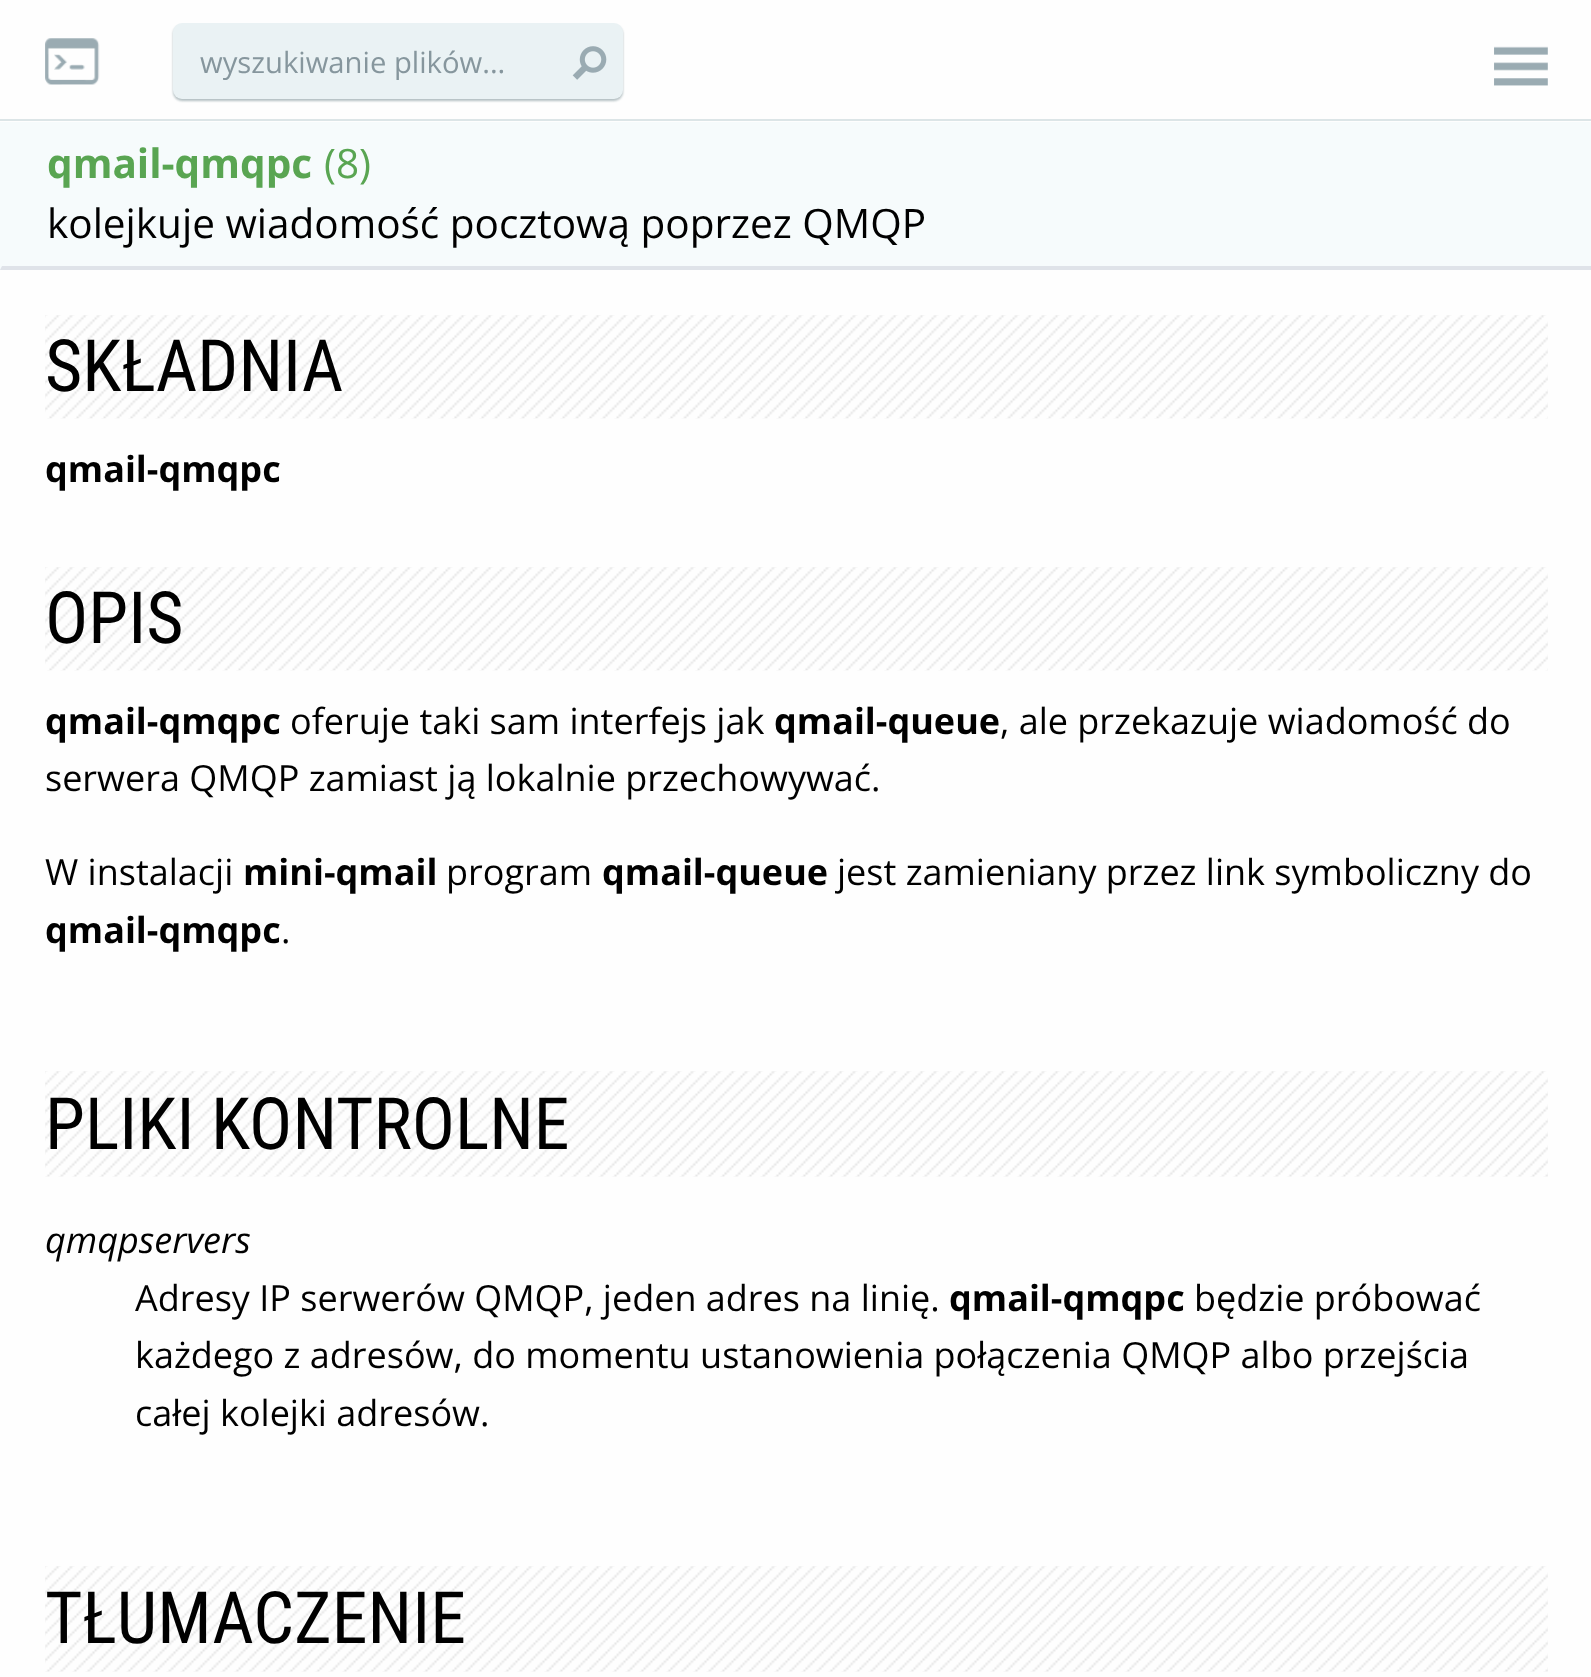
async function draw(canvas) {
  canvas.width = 1591
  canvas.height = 1677
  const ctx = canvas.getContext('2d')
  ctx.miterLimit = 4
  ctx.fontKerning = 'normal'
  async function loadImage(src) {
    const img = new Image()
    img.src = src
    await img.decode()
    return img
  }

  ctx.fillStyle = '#fefefe'
  ctx.fillRect(0, 0, 1591, 1677)
  ctx.fillStyle = '#dce5e7'
  ctx.fillRect(0, 119, 1591, 2)
  ctx.drawImage(await loadImage('image0.png'), 45, 38, 55, 47)
  ctx.fillStyle = '#062f374d'
  ctx.filter = 'blur(1px)'
  ctx.beginPath()
  ctx.roundRect(173, 25, 450, 76, 9)
  ctx.fill()
  ctx.filter = 'none'
  ctx.fillStyle = '#eaf2f4'
  ctx.beginPath()
  ctx.roundRect(173, 23, 450, 76, 9)
  ctx.fill()
  ctx.font = '29.25px Open Sans'
  ctx.fillStyle = '#86969d'
  ctx.fillText('wyszukiwanie plików...', 200, 73)
  ctx.drawImage(await loadImage('image1.png'), 572, 46, 35, 34)
  ctx.drawImage(await loadImage('image2.png'), 1494, 46, 54, 40)
  ctx.fillStyle = '#f6fbfc'
  ctx.fillRect(0, 122, 1591, 148)
  ctx.fillStyle = '#dfe3e9'
  ctx.beginPath()
  ctx.moveTo(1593, 270)
  ctx.lineTo(0, 270)
  ctx.lineTo(2, 266)
  ctx.lineTo(1591, 266)
  ctx.closePath()
  ctx.fill()
  ctx.font = 'bold 40.5px Open Sans'
  ctx.fillStyle = '#59a552'
  ctx.fillText('qmail-qmqpc', 47, 178)
  ctx.font = '40.5px Open Sans'
  ctx.fillText('(8)', 324, 178)
  ctx.fillStyle = '#000'
  ctx.fillText('kolejkuje wiadomość pocztową poprzez QMQP', 47, 238)
  ctx.drawImage(await loadImage('image3.png'), 45, 315, 1503, 104)
  ctx.font = '72px Roboto Condensed'
  ctx.fillText('SKŁADNIA', 45, 391)
  ctx.font = 'bold 36px Open Sans'
  ctx.fillText('qmail-qmqpc', 45, 482)
  ctx.drawImage(await loadImage('image4.png'), 45, 567, 1503, 104)
  ctx.font = '72px Roboto Condensed'
  ctx.fillText('OPIS', 45, 643)
  ctx.font = 'bold 36px Open Sans'
  ctx.fillText('qmail-qmqpc', 45, 734)
  ctx.font = '36px Open Sans'
  ctx.fillText('oferuje taki sam interfejs jak', 290, 734)
  ctx.font = 'bold 36px Open Sans'
  ctx.fillText('qmail-queue', 774, 734)
  ctx.font = '36px Open Sans'
  ctx.fillText(', ale przekazuje wiadomość do', 1000, 734)
  ctx.fillText('serwera QMQP zamiast ją lokalnie przechowywać.', 45, 791)
  ctx.fillText('W instalacji', 45, 885)
  ctx.font = 'bold 36px Open Sans'
  ctx.fillText('mini-qmail', 243, 885)
  ctx.font = '36px Open Sans'
  ctx.fillText('program', 446, 885)
  ctx.font = 'bold 36px Open Sans'
  ctx.fillText('qmail-queue', 602, 885)
  ctx.font = '36px Open Sans'
  ctx.fillText('jest zamieniany przez link symboliczny do', 837, 885)
  ctx.font = 'bold 36px Open Sans'
  ctx.fillText('qmail-qmqpc', 45, 943)
  ctx.font = '36px Open Sans'
  ctx.fillText('.', 281, 943)
  ctx.drawImage(await loadImage('image5.png'), 45, 1071, 1503, 106)
  ctx.font = '72px Roboto Condensed'
  ctx.fillText('PLIKI KONTROLNE', 45, 1149)
  ctx.font = 'italic 36px Open Sans'
  ctx.fillText('qmqpservers', 45, 1253)
  ctx.font = '36px Open Sans'
  ctx.fillText('Adresy IP serwerów QMQP, jeden adres na linię.', 135, 1311)
  ctx.font = 'bold 36px Open Sans'
  ctx.fillText('qmail-qmqpc', 949, 1311)
  ctx.font = '36px Open Sans'
  ctx.fillText('będzie próbować', 1194, 1311)
  ctx.fillText('każdego z adresów, do momentu ustanowienia połączenia QMQP albo przejścia', 135, 1368)
  ctx.fillText('całej kolejki adresów.', 135, 1426)
  ctx.drawImage(await loadImage('image5.png'), 45, 1566, 1503, 106)
  ctx.font = '72px Roboto Condensed'
  ctx.fillText('TŁUMACZENIE', 45, 1643)
}

draw(document.querySelector('canvas'))
